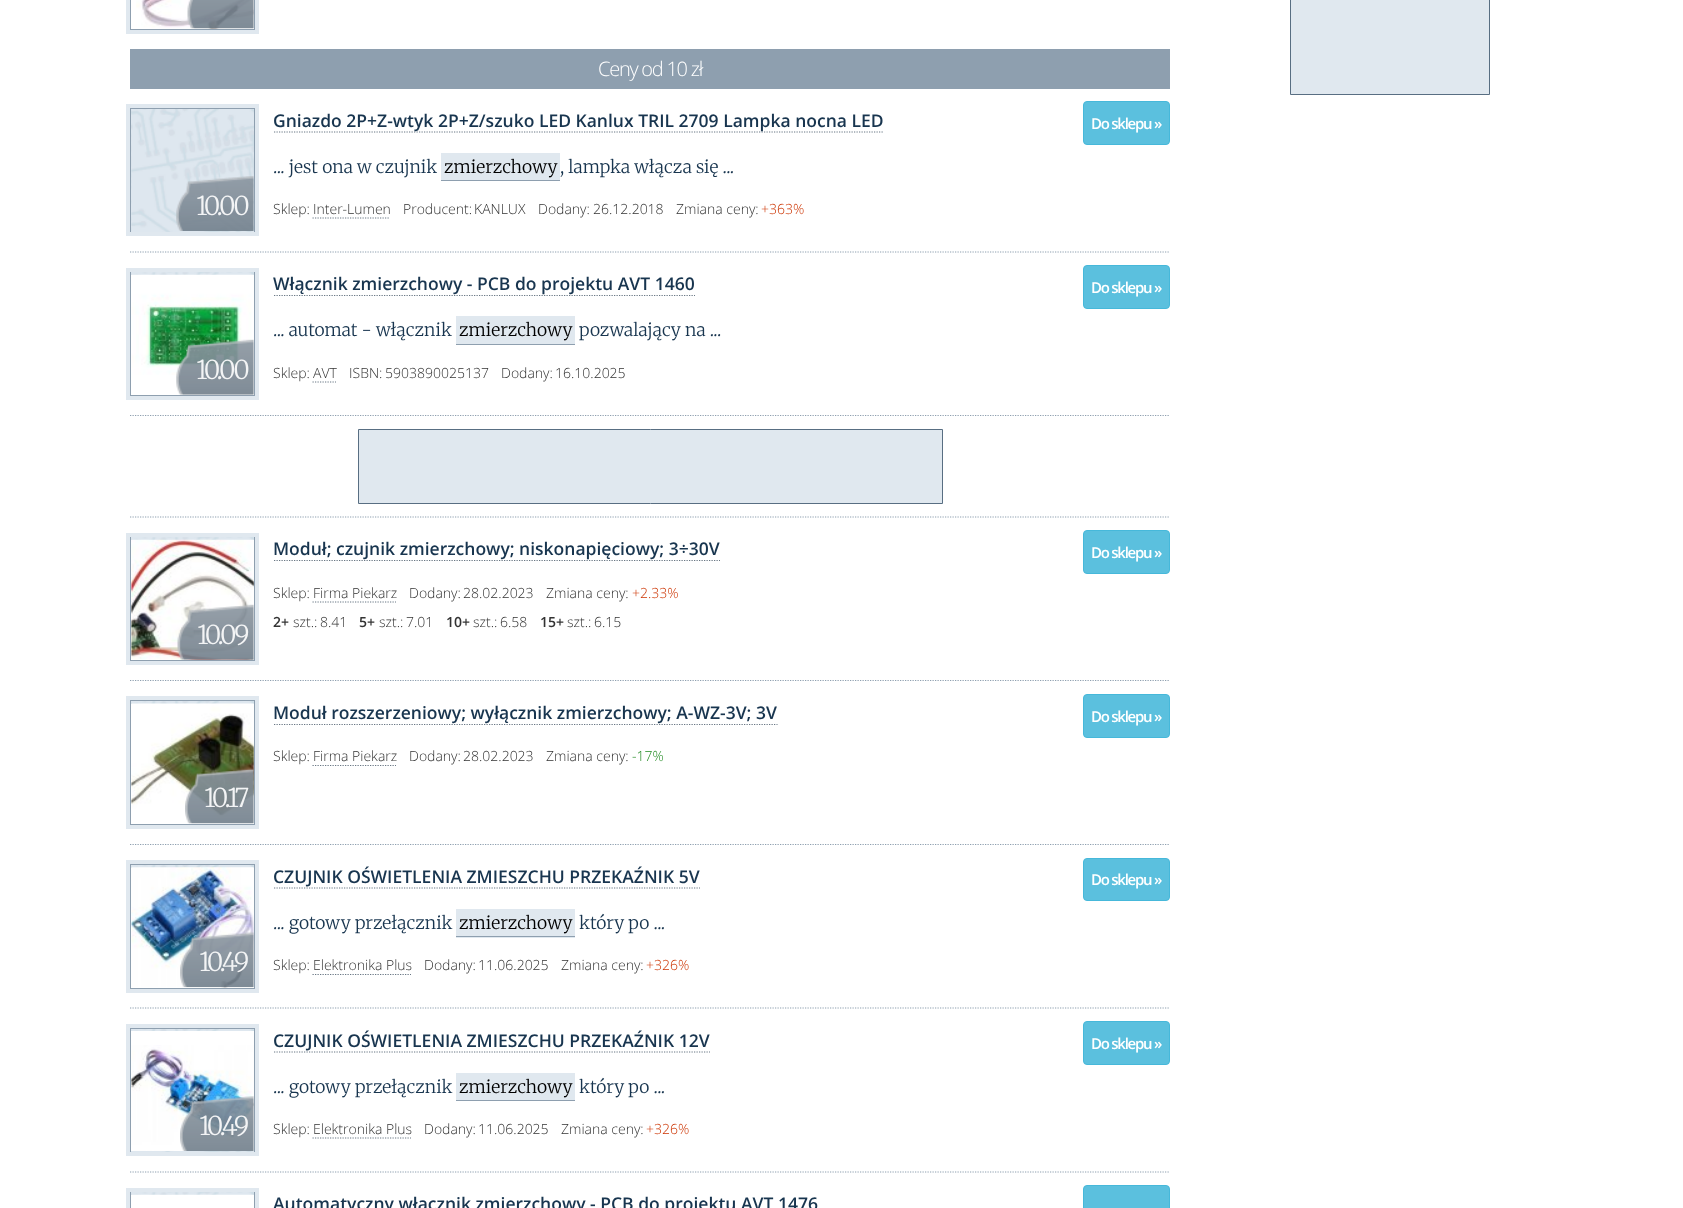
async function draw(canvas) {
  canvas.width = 1683
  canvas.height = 1208
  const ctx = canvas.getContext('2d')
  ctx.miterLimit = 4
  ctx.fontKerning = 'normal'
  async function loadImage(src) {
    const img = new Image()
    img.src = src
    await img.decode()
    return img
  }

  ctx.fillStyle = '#fff'
  ctx.fillRect(0, 0, 1683, 1208)
  ctx.fillStyle = '#e0e8ef'
  ctx.beginPath()
  ctx.rect(1290.5, -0.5, 199, 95)
  ctx.fill()
  ctx.strokeStyle = '#586e82'
  ctx.stroke()
  ctx.strokeStyle = '#8e9faf'
  ctx.strokeRect(130.5, -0.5, 124, 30)
  ctx.drawImage(await loadImage('image0.png'), 136, 0, 118, 29)
  ctx.strokeStyle = '#e0e8ef'
  ctx.lineWidth = 4
  ctx.strokeRect(128, -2, 129, 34)
  ctx.drawImage(await loadImage('image1.png'), 187, 0, 67, 29)
  ctx.fillStyle = '#8e9faf'
  ctx.fillRect(130, 49, 1040, 40)
  ctx.letterSpacing = '-1.25px'
  ctx.font = '300 20px Open Sans'
  ctx.fillStyle = '#fff'
  ctx.fillText('Ceny od 10 zł', 598, 76)
  ctx.beginPath()
  ctx.moveTo(274, 132)
  ctx.lineTo(884, 132)
  ctx.strokeStyle = '#697784'
  ctx.lineWidth = 1.2
  ctx.setLineDash([1.25, 1.25])
  ctx.stroke()
  ctx.letterSpacing = '0px'
  ctx.font = '600 17.5px Open Sans'
  ctx.fillStyle = '#18354f'
  ctx.fillText('Gniazdo 2P+Z-wtyk 2P+Z/szuko LED Kanlux TRIL 2709 Lampka nocna LED', 273, 127)
  ctx.fillStyle = '#5bc0de'
  ctx.beginPath()
  ctx.roundRect(1083.5, 101.5, 86, 43, 3.5)
  ctx.fill()
  ctx.strokeStyle = '#46b8da'
  ctx.lineWidth = 1
  ctx.setLineDash([])
  ctx.stroke()
  ctx.letterSpacing = '-1.25px'
  ctx.font = '600 15px Open Sans'
  ctx.fillStyle = '#fff'
  ctx.fillText('Do sklepu »', 1091, 129)
  ctx.letterSpacing = '0px'
  ctx.font = '300 17.5px Merriweather'
  ctx.fillStyle = '#18354f'
  ctx.fillText('... jest ona w czujnik', 273, 173)
  ctx.fillStyle = '#e0e8ef'
  ctx.fillRect(441, 153, 119, 27)
  ctx.fillStyle = '#000'
  ctx.fillText('zmierzchowy', 444, 173)
  ctx.fillStyle = '#8e9faf'
  ctx.fillRect(441, 180, 119, 1)
  ctx.fillStyle = '#18354f'
  ctx.fillText(', lampka włącza się ...', 560, 173)
  ctx.drawImage(await loadImage('image2.png'), 131, 109, 123, 123)
  ctx.strokeStyle = '#8e9faf'
  ctx.strokeRect(130.5, 108.5, 124, 124)
  ctx.strokeStyle = '#e0e8ef'
  ctx.lineWidth = 4
  ctx.strokeRect(128, 106, 129, 128)
  ctx.drawImage(await loadImage('image3.png'), 176, 176, 78, 55)
  ctx.letterSpacing = '-2.5px'
  ctx.font = '300 26px Merriweather'
  ctx.fillStyle = '#f3f4f5'
  ctx.fillText('10.00', 196, 215)
  ctx.letterSpacing = '0px'
  ctx.font = '300 14px Open Sans'
  ctx.fillStyle = '#333'
  ctx.fillText('Sklep:', 273, 214)
  ctx.fillText('Inter-Lumen', 313, 214)
  ctx.beginPath()
  ctx.moveTo(312.5, 218)
  ctx.lineTo(390, 218)
  ctx.strokeStyle = '#697784'
  ctx.lineWidth = 1.2
  ctx.setLineDash([1.25, 1.25])
  ctx.stroke()
  ctx.fillText('Producent:', 403, 214)
  ctx.fillText('KANLUX', 474, 214)
  ctx.fillText('Dodany:', 538, 214)
  ctx.fillText('26.12.2018', 593, 214)
  ctx.fillText('Zmiana ceny:', 676, 214)
  ctx.fillStyle = '#c30'
  ctx.fillText('+363%', 761, 214)
  ctx.beginPath()
  ctx.moveTo(130, 252)
  ctx.lineTo(1170, 252)
  ctx.strokeStyle = '#8e9faf'
  ctx.stroke()
  ctx.beginPath()
  ctx.moveTo(274, 295.5)
  ctx.lineTo(695, 295.5)
  ctx.strokeStyle = '#697784'
  ctx.stroke()
  ctx.font = '600 17.5px Open Sans'
  ctx.fillStyle = '#18354f'
  ctx.fillText('Włącznik zmierzchowy - PCB do projektu AVT 1460', 273, 290)
  ctx.fillStyle = '#5bc0de'
  ctx.beginPath()
  ctx.roundRect(1083.5, 265.5, 86, 43, 3.5)
  ctx.fill()
  ctx.strokeStyle = '#46b8da'
  ctx.lineWidth = 1
  ctx.setLineDash([])
  ctx.stroke()
  ctx.letterSpacing = '-1.25px'
  ctx.font = '600 15px Open Sans'
  ctx.fillStyle = '#fff'
  ctx.fillText('Do sklepu »', 1091, 293)
  ctx.letterSpacing = '0px'
  ctx.font = '300 17.5px Merriweather'
  ctx.fillStyle = '#18354f'
  ctx.fillText('... automat - włącznik', 273, 336)
  ctx.fillStyle = '#e0e8ef'
  ctx.fillRect(456, 316, 119, 28)
  ctx.fillStyle = '#000'
  ctx.fillText('zmierzchowy', 459, 336)
  ctx.fillStyle = '#8e9faf'
  ctx.fillRect(456, 344, 119, 1)
  ctx.fillStyle = '#18354f'
  ctx.fillText('pozwalający na ...', 579, 336)
  ctx.drawImage(await loadImage('image4.png'), 131, 272, 123, 3)
  ctx.strokeStyle = '#8e9faf'
  ctx.strokeRect(130.5, 271.5, 124, 124)
  ctx.drawImage(await loadImage('image5.png'), 131, 274, 123, 101)
  ctx.strokeStyle = '#e0e8ef'
  ctx.lineWidth = 4
  ctx.strokeRect(128, 270, 129, 128)
  ctx.drawImage(await loadImage('image6.png'), 176, 339, 78, 56)
  ctx.letterSpacing = '-2.5px'
  ctx.font = '300 26px Merriweather'
  ctx.fillStyle = '#f3f4f5'
  ctx.fillText('10.00', 196, 379)
  ctx.letterSpacing = '0px'
  ctx.font = '300 14px Open Sans'
  ctx.fillStyle = '#333'
  ctx.fillText('Sklep:', 273, 378)
  ctx.fillText('AVT', 313, 378)
  ctx.beginPath()
  ctx.moveTo(312.5, 382)
  ctx.lineTo(336, 382)
  ctx.strokeStyle = '#697784'
  ctx.lineWidth = 1.2
  ctx.setLineDash([1.25, 1.25])
  ctx.stroke()
  ctx.fillText('ISBN:', 349, 378)
  ctx.fillText('5903890025137', 385, 378)
  ctx.fillText('Dodany:', 501, 378)
  ctx.fillText('16.10.2025', 555, 378)
  ctx.beginPath()
  ctx.moveTo(130, 415.5)
  ctx.lineTo(1170, 415.5)
  ctx.strokeStyle = '#8e9faf'
  ctx.stroke()
  ctx.fillStyle = '#e0e8ef'
  ctx.beginPath()
  ctx.rect(358.5, 429.5, 584, 74)
  ctx.fill()
  ctx.strokeStyle = '#586e82'
  ctx.lineWidth = 1
  ctx.setLineDash([])
  ctx.stroke()
  ctx.beginPath()
  ctx.moveTo(130, 517)
  ctx.lineTo(1170, 517)
  ctx.strokeStyle = '#8e9faf'
  ctx.lineWidth = 1.2
  ctx.setLineDash([1.25, 1.25])
  ctx.stroke()
  ctx.beginPath()
  ctx.moveTo(274, 560.5)
  ctx.lineTo(720, 560.5)
  ctx.strokeStyle = '#697784'
  ctx.stroke()
  ctx.font = '600 17.5px Open Sans'
  ctx.fillStyle = '#18354f'
  ctx.fillText('Moduł; czujnik zmierzchowy; niskonapięciowy; 3÷30V', 273, 555)
  ctx.fillStyle = '#5bc0de'
  ctx.beginPath()
  ctx.roundRect(1083.5, 530.5, 86, 43, 3.5)
  ctx.fill()
  ctx.strokeStyle = '#46b8da'
  ctx.lineWidth = 1
  ctx.setLineDash([])
  ctx.stroke()
  ctx.letterSpacing = '-1.25px'
  ctx.font = '600 15px Open Sans'
  ctx.fillStyle = '#fff'
  ctx.fillText('Do sklepu »', 1091, 558)
  ctx.letterSpacing = '0px'
  ctx.font = '300 14px Open Sans'
  ctx.fillStyle = '#333'
  ctx.fillText('Sklep:', 273, 598)
  ctx.fillText('Firma Piekarz', 313, 598)
  ctx.beginPath()
  ctx.moveTo(312.5, 602)
  ctx.lineTo(396, 602)
  ctx.strokeStyle = '#697784'
  ctx.lineWidth = 1.2
  ctx.setLineDash([1.25, 1.25])
  ctx.stroke()
  ctx.fillText('Dodany:', 409, 598)
  ctx.fillText('28.02.2023', 463, 598)
  ctx.fillText('Zmiana ceny:', 546, 598)
  ctx.fillStyle = '#c30'
  ctx.fillText('+2.33%', 632, 598)
  ctx.font = '600 14px Open Sans'
  ctx.fillStyle = '#333'
  ctx.fillText('2+', 273, 627)
  ctx.font = '300 14px Open Sans'
  ctx.fillText('szt.:', 293, 627)
  ctx.fillText('8.41', 320, 627)
  ctx.font = '600 14px Open Sans'
  ctx.fillText('5+', 359, 627)
  ctx.font = '300 14px Open Sans'
  ctx.fillText('szt.:', 379, 627)
  ctx.fillText('7.01', 406, 627)
  ctx.font = '600 14px Open Sans'
  ctx.fillText('10+', 446, 627)
  ctx.font = '300 14px Open Sans'
  ctx.fillText('szt.:', 473, 627)
  ctx.fillText('6.58', 500, 627)
  ctx.font = '600 14px Open Sans'
  ctx.fillText('15+', 540, 627)
  ctx.font = '300 14px Open Sans'
  ctx.fillText('szt.:', 567, 627)
  ctx.fillText('6.15', 594, 627)
  ctx.drawImage(await loadImage('image4.png'), 131, 537, 123, 3)
  ctx.strokeStyle = '#8e9faf'
  ctx.lineWidth = 1
  ctx.setLineDash([])
  ctx.strokeRect(130.5, 536.5, 124, 124)
  ctx.drawImage(await loadImage('image7.png'), 131, 539, 123, 121)
  ctx.strokeStyle = '#e0e8ef'
  ctx.lineWidth = 4
  ctx.strokeRect(128, 535, 129, 128)
  ctx.drawImage(await loadImage('image8.png'), 177, 604, 77, 56)
  ctx.letterSpacing = '-2.5px'
  ctx.font = '300 26px Merriweather'
  ctx.fillStyle = '#f3f4f5'
  ctx.fillText('10.09', 197, 644)
  ctx.beginPath()
  ctx.moveTo(130, 680.5)
  ctx.lineTo(1170, 680.5)
  ctx.strokeStyle = '#8e9faf'
  ctx.lineWidth = 1.2
  ctx.setLineDash([1.25, 1.25])
  ctx.stroke()
  ctx.beginPath()
  ctx.moveTo(274, 724.5)
  ctx.lineTo(777.5, 724.5)
  ctx.strokeStyle = '#697784'
  ctx.stroke()
  ctx.letterSpacing = '0px'
  ctx.font = '600 17.5px Open Sans'
  ctx.fillStyle = '#18354f'
  ctx.fillText('Moduł rozszerzeniowy; wyłącznik zmierzchowy; A-WZ-3V; 3V', 273, 719)
  ctx.fillStyle = '#5bc0de'
  ctx.beginPath()
  ctx.roundRect(1083.5, 694.5, 86, 43, 3.5)
  ctx.fill()
  ctx.strokeStyle = '#46b8da'
  ctx.lineWidth = 1
  ctx.setLineDash([])
  ctx.stroke()
  ctx.letterSpacing = '-1.25px'
  ctx.font = '600 15px Open Sans'
  ctx.fillStyle = '#fff'
  ctx.fillText('Do sklepu »', 1091, 722)
  ctx.letterSpacing = '0px'
  ctx.font = '300 14px Open Sans'
  ctx.fillStyle = '#333'
  ctx.fillText('Sklep:', 273, 761)
  ctx.fillText('Firma Piekarz', 313, 761)
  ctx.beginPath()
  ctx.moveTo(312.5, 765.5)
  ctx.lineTo(396, 765.5)
  ctx.strokeStyle = '#697784'
  ctx.lineWidth = 1.2
  ctx.setLineDash([1.25, 1.25])
  ctx.stroke()
  ctx.fillText('Dodany:', 409, 761)
  ctx.fillText('28.02.2023', 463, 761)
  ctx.fillText('Zmiana ceny:', 546, 761)
  ctx.fillStyle = '#228b22'
  ctx.fillText('-17%', 632, 761)
  ctx.drawImage(await loadImage('image9.png'), 131, 701, 123, 3)
  ctx.strokeStyle = '#8e9faf'
  ctx.lineWidth = 1
  ctx.setLineDash([])
  ctx.strokeRect(130.5, 700.5, 124, 124)
  ctx.drawImage(await loadImage('image10.png'), 131, 703, 123, 120)
  ctx.strokeStyle = '#e0e8ef'
  ctx.lineWidth = 4
  ctx.strokeRect(128, 698, 129, 129)
  ctx.drawImage(await loadImage('image11.png'), 185, 768, 69, 56)
  ctx.letterSpacing = '-2.5px'
  ctx.font = '300 26px Merriweather'
  ctx.fillStyle = '#f3f4f5'
  ctx.fillText('10.17', 204, 807)
  ctx.beginPath()
  ctx.moveTo(130, 844.5)
  ctx.lineTo(1170, 844.5)
  ctx.strokeStyle = '#8e9faf'
  ctx.lineWidth = 1.2
  ctx.setLineDash([1.25, 1.25])
  ctx.stroke()
  ctx.letterSpacing = '0px'
  ctx.font = '600 17.5px Open Sans'
  ctx.fillStyle = '#18354f'
  ctx.fillText('CZUJNIK OŚWIETLENIA ZMIESZCHU PRZEKAŹNIK 5V', 273, 883)
  ctx.beginPath()
  ctx.moveTo(274, 888)
  ctx.lineTo(700, 888)
  ctx.strokeStyle = '#697784'
  ctx.stroke()
  ctx.fillStyle = '#5bc0de'
  ctx.beginPath()
  ctx.roundRect(1083.5, 858.5, 86, 42, 3.5)
  ctx.fill()
  ctx.strokeStyle = '#46b8da'
  ctx.lineWidth = 1
  ctx.setLineDash([])
  ctx.stroke()
  ctx.letterSpacing = '-1.25px'
  ctx.font = '600 15px Open Sans'
  ctx.fillStyle = '#fff'
  ctx.fillText('Do sklepu »', 1091, 885)
  ctx.letterSpacing = '0px'
  ctx.font = '300 17.5px Merriweather'
  ctx.fillStyle = '#18354f'
  ctx.fillText('... gotowy przełącznik', 273, 929)
  ctx.fillStyle = '#e0e8ef'
  ctx.fillRect(456, 909, 119, 29)
  ctx.fillStyle = '#000'
  ctx.fillText('zmierzchowy', 459, 929)
  ctx.fillStyle = '#8e9faf'
  ctx.fillRect(456, 936, 119, 1)
  ctx.fillStyle = '#18354f'
  ctx.fillText('który po ...', 579, 929)
  ctx.drawImage(await loadImage('image12.png'), 131, 865, 123, 3)
  ctx.strokeStyle = '#8e9faf'
  ctx.strokeRect(130.5, 864.5, 124, 124)
  ctx.drawImage(await loadImage('image13.png'), 131, 867, 123, 121)
  ctx.strokeStyle = '#e0e8ef'
  ctx.lineWidth = 4
  ctx.strokeRect(128, 862, 129, 129)
  ctx.drawImage(await loadImage('image14.png'), 180, 932, 74, 56)
  ctx.letterSpacing = '-2.5px'
  ctx.font = '300 26px Merriweather'
  ctx.fillStyle = '#f3f4f5'
  ctx.fillText('10.49', 199, 971)
  ctx.letterSpacing = '0px'
  ctx.font = '300 14px Open Sans'
  ctx.fillStyle = '#333'
  ctx.fillText('Sklep:', 273, 970)
  ctx.fillText('Elektronika Plus', 313, 970)
  ctx.beginPath()
  ctx.moveTo(312.5, 974.5)
  ctx.lineTo(411, 974.5)
  ctx.strokeStyle = '#697784'
  ctx.lineWidth = 1.2
  ctx.setLineDash([1.25, 1.25])
  ctx.stroke()
  ctx.fillText('Dodany:', 424, 970)
  ctx.fillText('11.06.2025', 478, 970)
  ctx.fillText('Zmiana ceny:', 561, 970)
  ctx.fillStyle = '#c30'
  ctx.fillText('+326%', 646, 970)
  ctx.beginPath()
  ctx.moveTo(130, 1008)
  ctx.lineTo(1170, 1008)
  ctx.strokeStyle = '#8e9faf'
  ctx.stroke()
  ctx.font = '600 17.5px Open Sans'
  ctx.fillStyle = '#18354f'
  ctx.fillText('CZUJNIK OŚWIETLENIA ZMIESZCHU PRZEKAŹNIK 12V', 273, 1047)
  ctx.beginPath()
  ctx.moveTo(274, 1052)
  ctx.lineTo(710, 1052)
  ctx.strokeStyle = '#697784'
  ctx.stroke()
  ctx.fillStyle = '#5bc0de'
  ctx.beginPath()
  ctx.roundRect(1083.5, 1021.5, 86, 43, 3.5)
  ctx.fill()
  ctx.strokeStyle = '#46b8da'
  ctx.lineWidth = 1
  ctx.setLineDash([])
  ctx.stroke()
  ctx.letterSpacing = '-1.25px'
  ctx.font = '600 15px Open Sans'
  ctx.fillStyle = '#fff'
  ctx.fillText('Do sklepu »', 1091, 1049)
  ctx.letterSpacing = '0px'
  ctx.font = '300 17.5px Merriweather'
  ctx.fillStyle = '#18354f'
  ctx.fillText('... gotowy przełącznik', 273, 1093)
  ctx.fillStyle = '#e0e8ef'
  ctx.fillRect(456, 1073, 119, 27)
  ctx.fillStyle = '#000'
  ctx.fillText('zmierzchowy', 459, 1093)
  ctx.fillStyle = '#8e9faf'
  ctx.fillRect(456, 1100, 119, 1)
  ctx.fillStyle = '#18354f'
  ctx.fillText('który po ...', 579, 1093)
  ctx.drawImage(await loadImage('image2.png'), 131, 1029, 123, 123)
  ctx.strokeStyle = '#8e9faf'
  ctx.strokeRect(130.5, 1028.5, 124, 124)
  ctx.fillStyle = '#fff'
  ctx.fillRect(131, 1031, 123, 120)
  ctx.drawImage(await loadImage('image15.png'), 131, 1045, 123, 106)
  ctx.strokeStyle = '#e0e8ef'
  ctx.lineWidth = 4
  ctx.strokeRect(128, 1026, 129, 128)
  ctx.drawImage(await loadImage('image16.png'), 180, 1096, 74, 55)
  ctx.letterSpacing = '-2.5px'
  ctx.font = '300 26px Merriweather'
  ctx.fillStyle = '#f3f4f5'
  ctx.fillText('10.49', 199, 1135)
  ctx.letterSpacing = '0px'
  ctx.font = '300 14px Open Sans'
  ctx.fillStyle = '#333'
  ctx.fillText('Sklep:', 273, 1134)
  ctx.fillText('Elektronika Plus', 313, 1134)
  ctx.beginPath()
  ctx.moveTo(312.5, 1138)
  ctx.lineTo(411, 1138)
  ctx.strokeStyle = '#697784'
  ctx.lineWidth = 1.2
  ctx.setLineDash([1.25, 1.25])
  ctx.stroke()
  ctx.fillText('Dodany:', 424, 1134)
  ctx.fillText('11.06.2025', 478, 1134)
  ctx.fillText('Zmiana ceny:', 561, 1134)
  ctx.fillStyle = '#c30'
  ctx.fillText('+326%', 646, 1134)
  ctx.beginPath()
  ctx.moveTo(130, 1172)
  ctx.lineTo(1170, 1172)
  ctx.strokeStyle = '#8e9faf'
  ctx.stroke()
  ctx.drawImage(await loadImage('image4.png'), 131, 1192, 123, 3)
  ctx.lineWidth = 1
  ctx.setLineDash([])
  ctx.strokeRect(130.5, 1191.5, 124, 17)
  ctx.drawImage(await loadImage('image17.png'), 131, 1194, 123, 1)
  ctx.strokeStyle = '#e0e8ef'
  ctx.lineWidth = 4
  ctx.strokeRect(128, 1190, 129, 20)
  ctx.font = '600 17.5px Open Sans'
  ctx.fillStyle = '#18354f'
  ctx.fillText('Automatyczny włącznik zmierzchowy - PCB do projektu AVT 1476', 273, 1210)
  ctx.fillStyle = '#5bc0de'
  ctx.beginPath()
  ctx.roundRect(1083.5, 1185.5, 86, 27, 3.5)
  ctx.fill()
  ctx.strokeStyle = '#46b8da'
  ctx.lineWidth = 1
  ctx.stroke()
}

draw(document.querySelector('canvas'))
